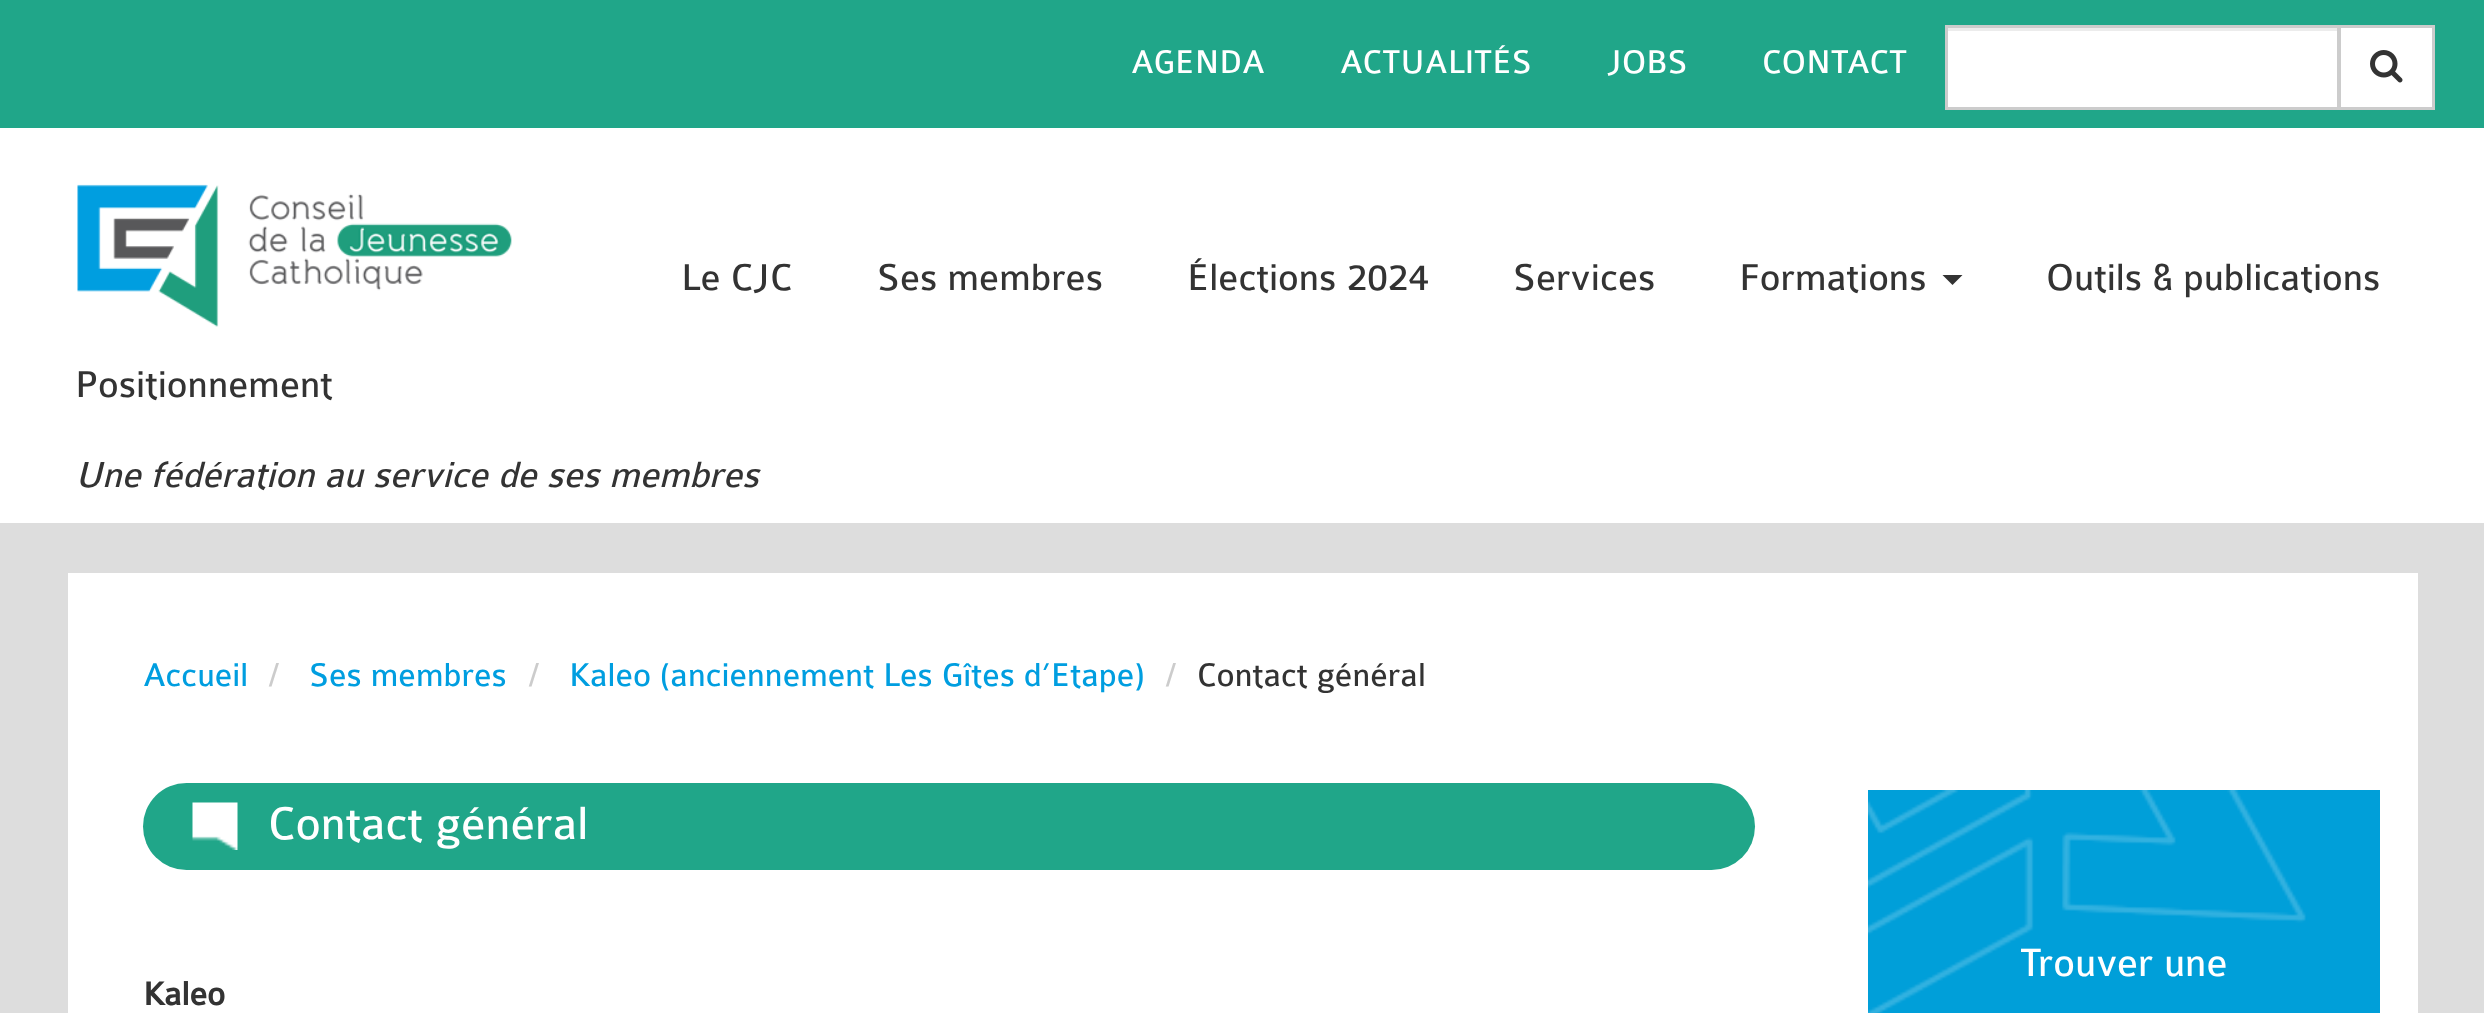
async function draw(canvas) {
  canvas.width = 2484
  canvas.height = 1013
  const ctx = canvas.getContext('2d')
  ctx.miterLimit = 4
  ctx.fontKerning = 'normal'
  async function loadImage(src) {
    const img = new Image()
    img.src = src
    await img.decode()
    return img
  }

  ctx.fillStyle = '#ddd'
  ctx.fillRect(0, 0, 2484, 1013)
  ctx.fillStyle = '#fff'
  ctx.fillRect(0, 128, 2484, 395)
  ctx.fillStyle = '#20a689'
  ctx.fillRect(0, 0, 2484, 128)
  ctx.font = '35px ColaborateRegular'
  ctx.fillStyle = '#fff'
  ctx.fillText('AGENDA', 1131, 73)
  ctx.fillText('ACTUALITÉS', 1340, 73)
  ctx.fillText('JOBS', 1607, 73)
  ctx.fillText('CONTACT', 1762, 73)
  ctx.fillRect(1948, 31, 389, 76)
  ctx.fillStyle = '#ececec'
  ctx.fillRect(1948, 28, 390, 3)
  ctx.fillStyle = '#fff'
  ctx.beginPath()
  ctx.rect(2339.5, 26.5, 94, 82)
  ctx.fill()
  ctx.strokeStyle = '#ccc'
  ctx.lineWidth = 3
  ctx.stroke()
  ctx.strokeRect(1946.5, 26.5, 392, 82)
  ctx.drawImage(await loadImage('image0.png'), 2370, 50, 33, 33)
  ctx.drawImage(await loadImage('image1.png'), 77, 184, 435, 143)
  ctx.font = '40px ColaborateRegular'
  ctx.fillStyle = '#333'
  ctx.fillText('Le CJC', 681, 290)
  ctx.fillText('Ses membres', 877, 290)
  ctx.fillText('Élections 2024', 1187, 290)
  ctx.fillText('Services', 1513, 290)
  ctx.fillText('Formations', 1739, 290)
  ctx.beginPath()
  ctx.moveTo(1942.5, 275)
  ctx.lineTo(1962.5, 275)
  ctx.lineTo(1952.5, 285)
  ctx.closePath()
  ctx.fill()
  ctx.fillText('Outils & publications', 2046, 290)
  ctx.fillText('Positionnement', 75, 397)
  ctx.font = 'italic 38.5px ColaborateRegular'
  ctx.fillText('Une fédération au service de ses membres', 75, 487)
  ctx.fillStyle = '#fff'
  ctx.fillRect(68, 573, 2350, 440)
  ctx.font = '35px ColaborateRegular'
  ctx.fillStyle = '#009ee0'
  ctx.fillText('Accueil', 143, 686)
  ctx.fillStyle = '#ccc'
  ctx.fillText('/', 269, 686)
  ctx.fillStyle = '#009ee0'
  ctx.fillText('Ses membres', 309, 686)
  ctx.fillStyle = '#ccc'
  ctx.fillText('/', 529, 686)
  ctx.fillStyle = '#009ee0'
  ctx.fillText('Kaleo (anciennement Les Gîtes d’Etape)', 569, 686)
  ctx.fillStyle = '#ccc'
  ctx.fillText('/', 1166, 686)
  ctx.fillStyle = '#333'
  ctx.fillText('Contact général', 1197, 686)
  ctx.fillStyle = '#20a689'
  ctx.beginPath()
  ctx.roundRect(143, 783, 1612, 87, 43.5)
  ctx.fill()
  ctx.drawImage(await loadImage('image2.png'), 192, 802, 46, 48)
  ctx.font = '49px ColaborateRegular'
  ctx.fillStyle = '#fff'
  ctx.fillText('Contact général', 268, 839)
  ctx.font = 'bold 35px ColaborateRegular'
  ctx.fillStyle = '#333'
  ctx.fillText('Kaleo', 143, 1005)
  ctx.fillStyle = '#009fd9'
  ctx.fillRect(1868, 790, 512, 223)
  ctx.drawImage(await loadImage('image3.png'), 1868, 790, 438, 223)
  ctx.font = '42px ColaborateRegular'
  ctx.fillStyle = '#fff'
  ctx.fillText('Trouver une', 2020, 976)
}

draw(document.querySelector('canvas'))
